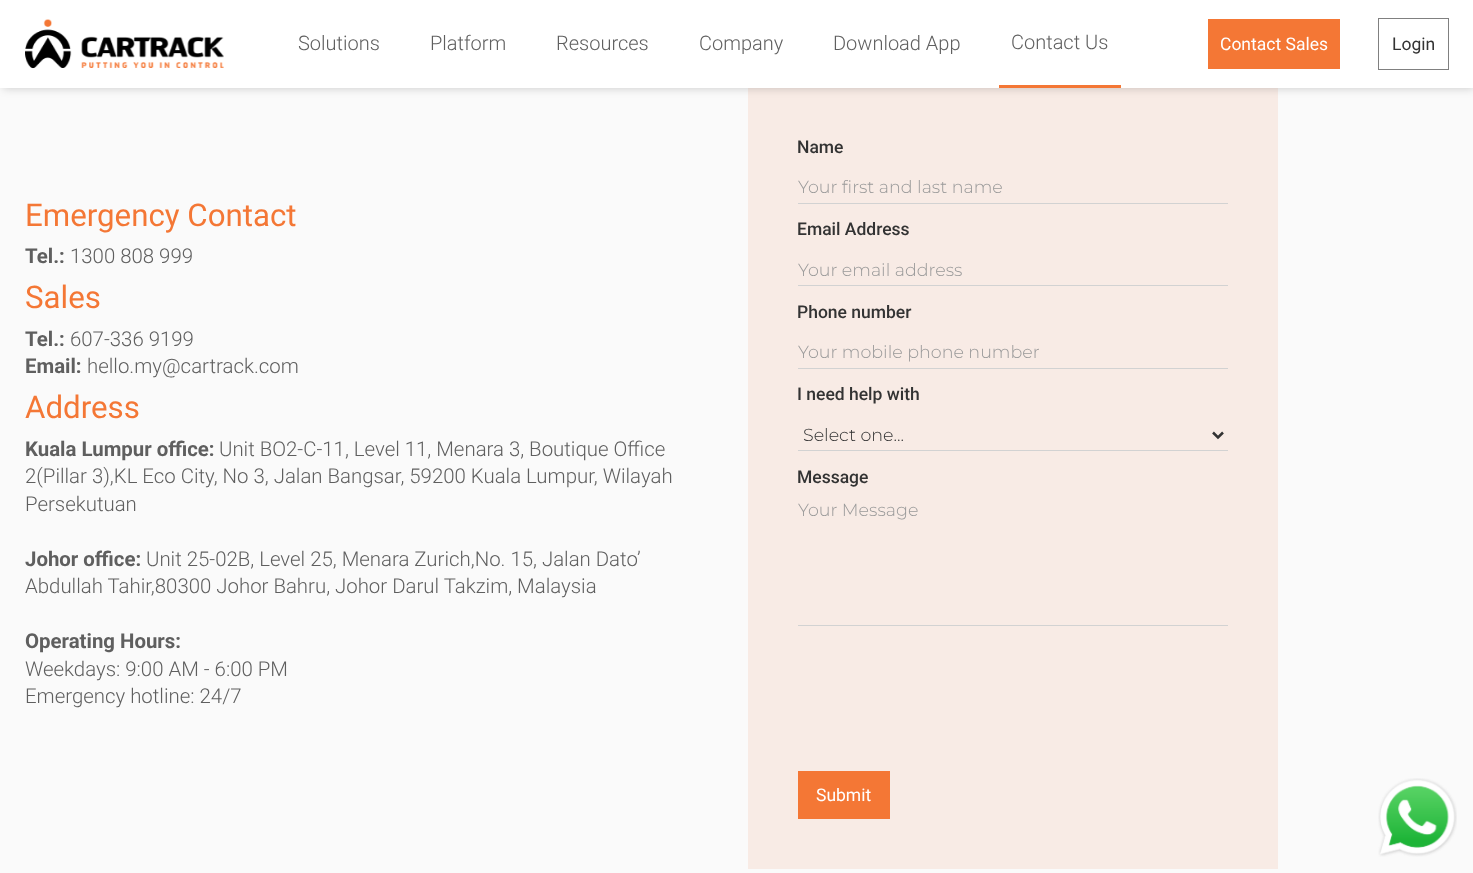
async function draw(canvas) {
  canvas.width = 1473
  canvas.height = 873
  const ctx = canvas.getContext('2d')
  ctx.miterLimit = 4
  ctx.fontKerning = 'normal'
  async function loadImage(src) {
    const img = new Image()
    img.src = src
    await img.decode()
    return img
  }

  ctx.fillStyle = '#fafafa'
  ctx.fillRect(0, 0, 1473, 873)
  ctx.fillStyle = '#f8ebe5'
  ctx.fillRect(748, 88, 530, 781)
  ctx.fillStyle = '#00000033'
  ctx.filter = 'blur(5px)'
  ctx.beginPath()
  ctx.rect(3, 3, 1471, 85)
  ctx.fill()
  ctx.filter = 'none'
  ctx.fillStyle = '#fff'
  ctx.fillRect(0, 0, 1473, 88)
  ctx.drawImage(await loadImage('image0.png'), 25, 19, 199, 50)
  ctx.font = '300 20px Roboto'
  ctx.fillStyle = '#5f5f5f'
  ctx.fillText('Solutions', 298, 50)
  ctx.fillText('Platform', 430, 50)
  ctx.fillText('Resources', 556, 50)
  ctx.fillText('Company', 699, 50)
  ctx.fillText('Download App', 833, 50)
  ctx.fillStyle = '#f47735'
  ctx.fillRect(999, 85, 122, 3)
  ctx.fillStyle = '#5f5f5f'
  ctx.fillText('Contact Us', 1011, 49)
  ctx.fillStyle = '#f47735'
  ctx.fillRect(1208, 19, 132, 50)
  ctx.font = '17.5px Roboto'
  ctx.fillStyle = '#fff'
  ctx.fillText('Contact Sales', 1220, 50)
  ctx.strokeStyle = '#808080'
  ctx.strokeRect(1378.5, 18.5, 70, 51)
  ctx.fillStyle = '#333'
  ctx.fillText('Login', 1392, 50)
  ctx.font = '31.25px Roboto'
  ctx.fillStyle = '#f47735'
  ctx.fillText('Emergency Contact', 25, 226)
  ctx.font = 'bold 20.4px Roboto'
  ctx.fillStyle = '#5f5f5f'
  ctx.fillText('Tel.:', 25, 263)
  ctx.font = '300 20.4px Roboto'
  ctx.fillText('1300 808 999', 70, 263)
  ctx.font = '31.25px Roboto'
  ctx.fillStyle = '#f47735'
  ctx.fillText('Sales', 25, 308)
  ctx.font = 'bold 20.4px Roboto'
  ctx.fillStyle = '#5f5f5f'
  ctx.fillText('Tel.:', 25, 346)
  ctx.font = '300 20.4px Roboto'
  ctx.fillText('607-336 9199', 70, 346)
  ctx.font = 'bold 20.4px Roboto'
  ctx.fillText('Email:', 25, 373)
  ctx.font = '300 20.4px Roboto'
  ctx.fillText('hello.my@cartrack.com', 87, 373)
  ctx.font = '31.25px Roboto'
  ctx.fillStyle = '#f47735'
  ctx.fillText('Address', 25, 418)
  ctx.font = 'bold 20.4px Roboto'
  ctx.fillStyle = '#5f5f5f'
  ctx.fillText('Kuala Lumpur office:', 25, 456)
  ctx.font = '300 20.4px Roboto'
  ctx.fillText('Unit BO2-C-11, Level 11, Menara 3, Boutique Office', 219, 456)
  ctx.fillText('2(Pillar 3),KL Eco City, No 3, Jalan Bangsar, 59200 Kuala Lumpur, Wilayah', 25, 483)
  ctx.fillText('Persekutuan', 25, 511)
  ctx.font = 'bold 20.4px Roboto'
  ctx.fillText('Johor office:', 25, 566)
  ctx.font = '300 20.4px Roboto'
  ctx.fillText('Unit 25-02B, Level 25, Menara Zurich,No. 15, Jalan Dato’', 146, 566)
  ctx.fillText('Abdullah Tahir,80300 Johor Bahru, Johor Darul Takzim, Malaysia', 25, 593)
  ctx.font = 'bold 20.4px Roboto'
  ctx.fillText('Operating Hours:', 25, 648)
  ctx.font = '300 20.4px Roboto'
  ctx.fillText('Weekdays: 9:00 AM - 6:00 PM', 25, 676)
  ctx.fillText('Emergency hotline: 24/7', 25, 703)
  ctx.font = '500 17.5px Roboto'
  ctx.fillStyle = '#333'
  ctx.fillText('Name', 797, 153)
  ctx.fillStyle = '#d2d2d2'
  ctx.fillRect(798, 203, 430, 1)
  ctx.font = '300 17.5px Montserrat'
  ctx.fillStyle = '#999'
  ctx.fillText('Your first and last name', 798, 193)
  ctx.font = '500 17.5px Roboto'
  ctx.fillStyle = '#333'
  ctx.fillText('Email Address', 797, 235)
  ctx.fillStyle = '#d2d2d2'
  ctx.fillRect(798, 285, 430, 1)
  ctx.font = '300 17.5px Montserrat'
  ctx.fillStyle = '#999'
  ctx.fillText('Your email address', 798, 276)
  ctx.font = '500 17.5px Roboto'
  ctx.fillStyle = '#333'
  ctx.fillText('Phone number', 797, 318)
  ctx.fillStyle = '#d2d2d2'
  ctx.fillRect(798, 368, 430, 1)
  ctx.font = '300 17.5px Montserrat'
  ctx.fillStyle = '#999'
  ctx.fillText('Your mobile phone number', 798, 358)
  ctx.font = '500 17.5px Roboto'
  ctx.fillStyle = '#333'
  ctx.fillText('I need help with', 797, 400)
  ctx.fillStyle = '#d2d2d2'
  ctx.fillRect(798, 450, 430, 1)
  ctx.beginPath()
  ctx.moveTo(1213, 432.5)
  ctx.lineTo(1218, 437.5)
  ctx.lineTo(1223, 432.5)
  ctx.strokeStyle = '#333'
  ctx.lineWidth = 2.5
  ctx.stroke()
  ctx.font = '300 17.5px Montserrat'
  ctx.fillStyle = '#333'
  ctx.fillText('Select one...', 803, 441)
  ctx.font = '500 17.5px Roboto'
  ctx.fillText('Message', 797, 483)
  ctx.fillStyle = '#d2d2d2'
  ctx.fillRect(798, 625, 430, 1)
  ctx.font = '300 17.5px Montserrat'
  ctx.fillStyle = '#999'
  ctx.fillText('Your Message', 798, 516)
  ctx.fillStyle = '#f47735'
  ctx.fillRect(798, 771, 92, 48)
  ctx.font = '17.5px Roboto'
  ctx.fillStyle = '#fff'
  ctx.fillText('Submit', 816, 801)
  ctx.drawImage(await loadImage('image1.png'), 1378, 778, 79, 79)
}

draw(document.querySelector('canvas'))
